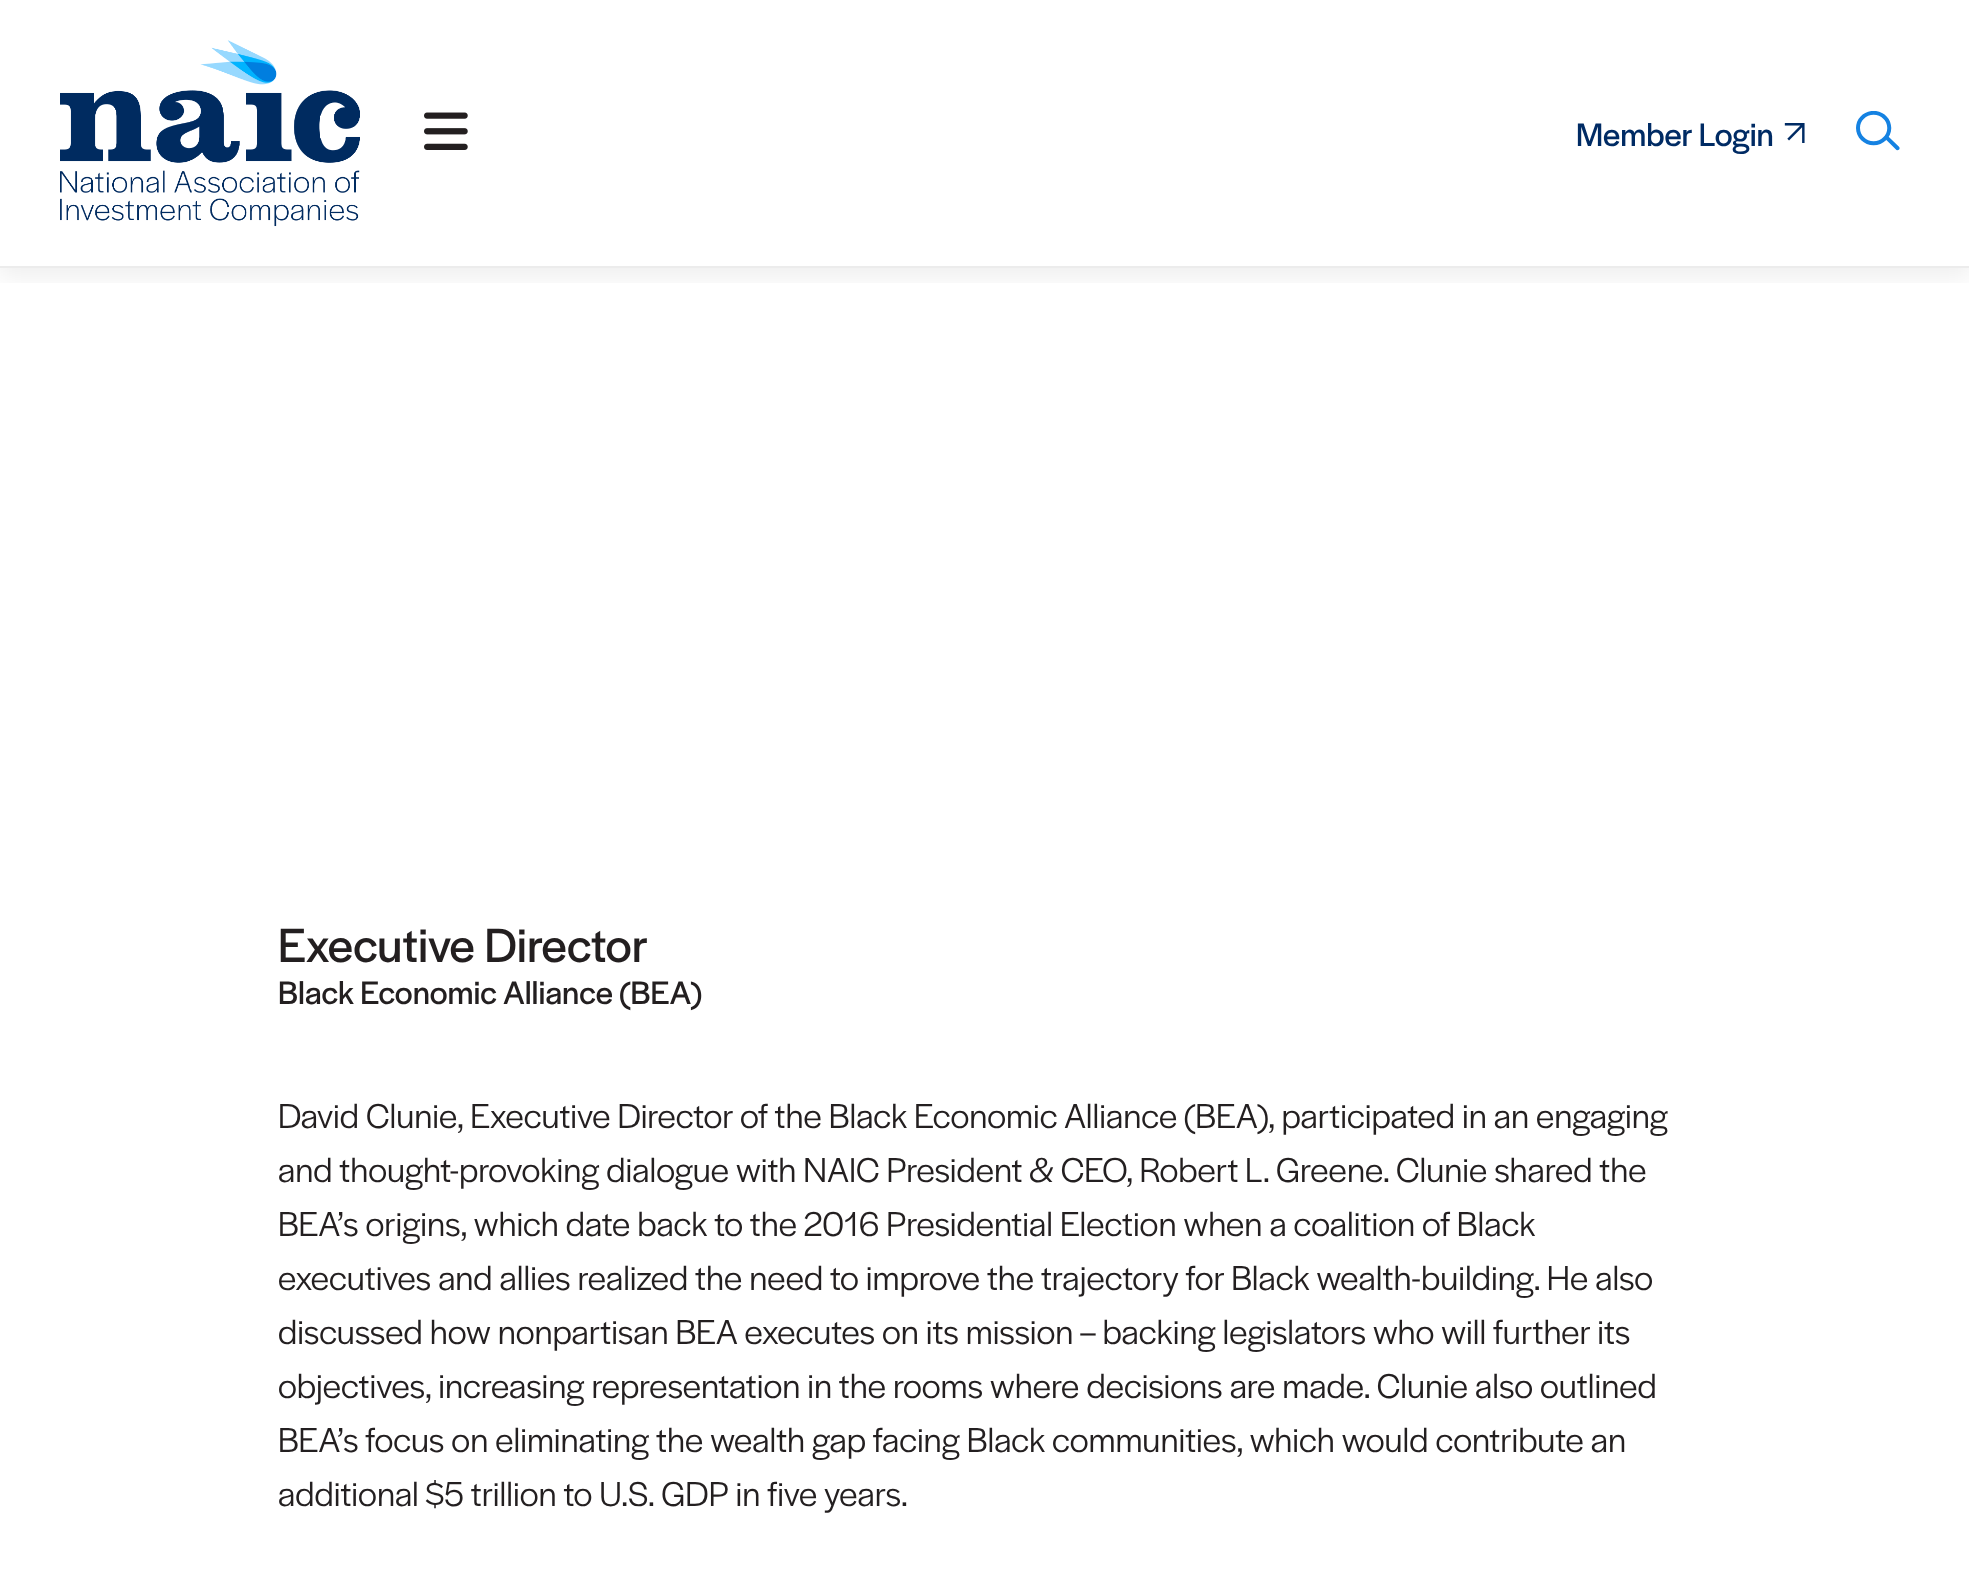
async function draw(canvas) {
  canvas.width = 1969
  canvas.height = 1573
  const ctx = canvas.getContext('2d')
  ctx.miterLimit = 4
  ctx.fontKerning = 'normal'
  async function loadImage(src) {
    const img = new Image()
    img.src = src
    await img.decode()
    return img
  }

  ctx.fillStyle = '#fff'
  ctx.fillRect(0, 0, 1969, 1573)
  ctx.save()
  ctx.beginPath()
  ctx.rect(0, 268, 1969, 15)
  ctx.clip()
  ctx.fillStyle = '#00000012'
  ctx.filter = 'blur(13px)'
  ctx.beginPath()
  ctx.rect(-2, 4, 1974, 272)
  ctx.fill()
  ctx.filter = 'none'
  ctx.restore()
  ctx.fillStyle = '#ececec'
  ctx.fillRect(0, 266, 1969, 2)
  ctx.drawImage(await loadImage('image0.png'), 60, 40, 300, 187)
  ctx.drawImage(await loadImage('image1.png'), 424, 112, 44, 38)
  ctx.font = '34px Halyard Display'
  ctx.fillStyle = '#002b64'
  ctx.fillText('Member Login', 1576, 146)
  ctx.drawImage(await loadImage('image2.png'), 1784, 123, 21, 20)
  ctx.drawImage(await loadImage('image3.png'), 1856, 111, 44, 40)
  ctx.font = '50px Halyard Display'
  ctx.fillStyle = '#231f20'
  ctx.fillText('Executive Director', 278, 962)
  ctx.font = '34px Halyard Display'
  ctx.fillText('Black Economic Alliance (BEA)', 278, 1004)
  ctx.font = '36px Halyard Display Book'
  ctx.fillText('David Clunie, Executive Director of the Black Economic Alliance (BEA), participated in an engaging', 278, 1128)
  ctx.fillText('and thought-provoking dialogue with NAIC President & CEO, Robert L. Greene. Clunie shared the', 278, 1182)
  ctx.fillText('BEA’s origins, which date back to the 2016 Presidential Election when a coalition of Black', 278, 1236)
  ctx.fillText('executives and allies realized the need to improve the trajectory for Black wealth-building. He also', 278, 1290)
  ctx.fillText('discussed how nonpartisan BEA executes on its mission – backing legislators who will further its', 278, 1344)
  ctx.fillText('objectives, increasing representation in the rooms where decisions are made. Clunie also outlined', 278, 1398)
  ctx.fillText('BEA’s focus on eliminating the wealth gap facing Black communities, which would contribute an', 278, 1452)
  ctx.fillText('additional $5 trillion to U.S. GDP in five years.', 278, 1506)
}

draw(document.querySelector('canvas'))
